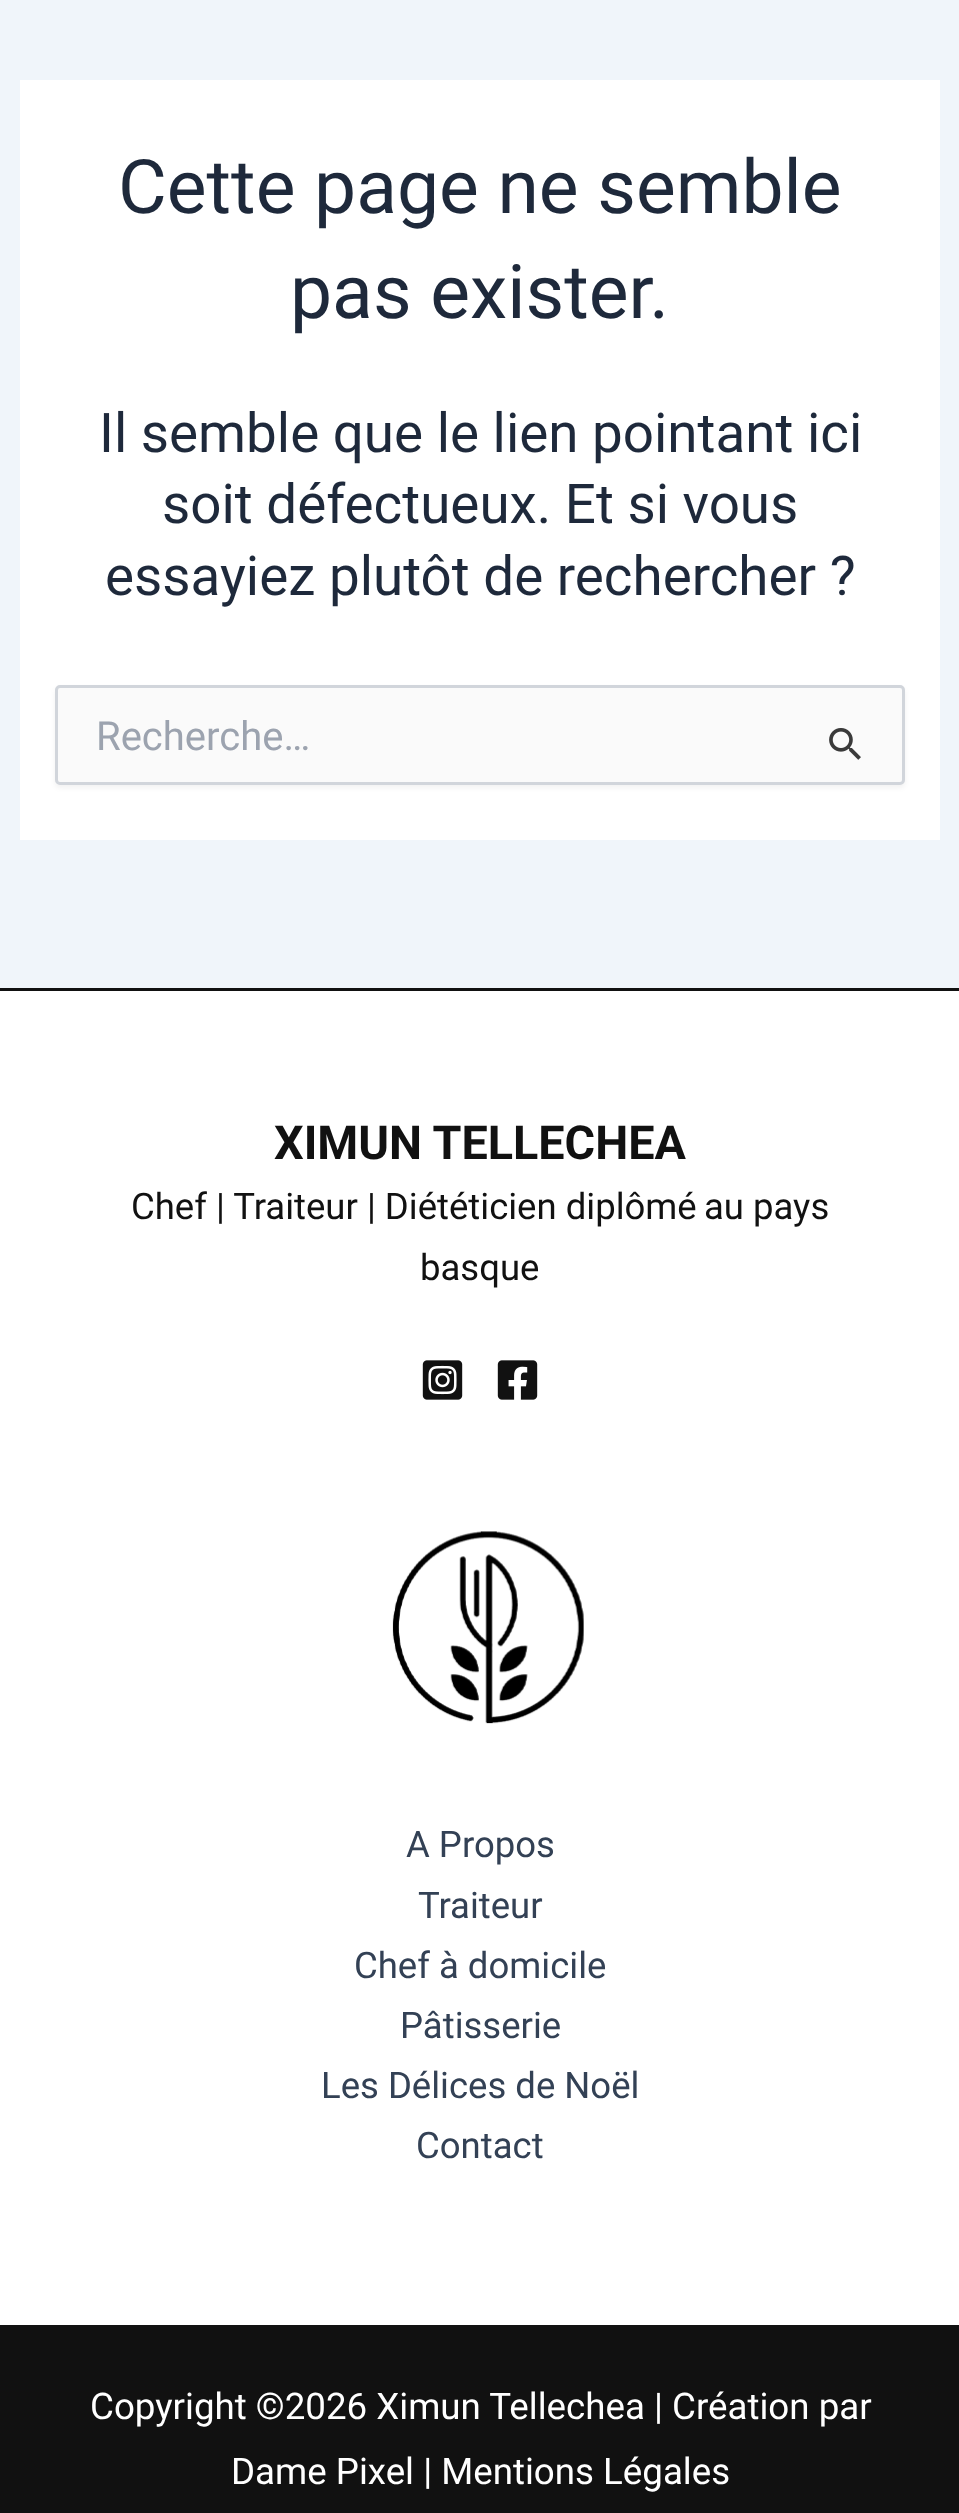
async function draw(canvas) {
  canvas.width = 959
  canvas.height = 2513
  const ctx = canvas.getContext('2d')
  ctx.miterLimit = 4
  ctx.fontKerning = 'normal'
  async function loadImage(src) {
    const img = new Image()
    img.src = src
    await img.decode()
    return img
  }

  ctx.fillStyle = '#f0f5fa'
  ctx.fillRect(0, 0, 959, 2513)
  ctx.fillStyle = '#fff'
  ctx.fillRect(20, 80, 920, 760)
  ctx.font = '75px Roboto'
  ctx.fillStyle = '#1e293b'
  ctx.fillText('Cette page ne semble', 118, 213)
  ctx.fillText('pas exister.', 290, 318)
  ctx.font = '54.75px Roboto'
  ctx.fillText('Il semble que le lien pointant ici', 99, 452)
  ctx.fillText('soit défectueux. Et si vous', 162, 523)
  ctx.fillText('essayiez plutôt de rechercher ?', 105, 595)
  ctx.fillStyle = '#0000000d'
  ctx.filter = 'blur(2.5px)'
  ctx.beginPath()
  ctx.roundRect(55, 688, 850, 100, 5)
  ctx.fill()
  ctx.filter = 'none'
  ctx.fillStyle = '#fafafa'
  ctx.beginPath()
  ctx.roundRect(56.5, 686.5, 847, 97, 3.5)
  ctx.fill()
  ctx.strokeStyle = '#d1d5db'
  ctx.lineWidth = 3
  ctx.stroke()
  ctx.font = '40px Roboto'
  ctx.fillStyle = '#9ca3af'
  ctx.fillText('Recherche…', 96, 750)
  ctx.drawImage(await loadImage('image0.png'), 829, 728, 32, 32)
  ctx.fillStyle = '#fff'
  ctx.fillRect(0, 991, 959, 1334)
  ctx.fillStyle = '#111'
  ctx.fillRect(0, 988, 959, 3)
  ctx.font = 'bold 46.75px Roboto'
  ctx.fillText('XIMUN TELLECHEA', 274, 1159)
  ctx.font = '36.5px Roboto'
  ctx.fillText('Chef | Traiteur | Diététicien diplômé', 131, 1219)
  ctx.fillText('au pays', 704, 1219)
  ctx.fillText('basque', 420, 1280)
  ctx.drawImage(await loadImage('image1.png'), 422, 1360, 41, 40)
  ctx.drawImage(await loadImage('image2.png'), 497, 1360, 41, 40)
  ctx.drawImage(await loadImage('image3.png'), 392, 1531, 192, 193)
  ctx.fillStyle = '#334155'
  ctx.fillText('A Propos', 406, 1857)
  ctx.fillText('Traiteur', 418, 1918)
  ctx.fillText('Chef à domicile', 354, 1978)
  ctx.fillText('Pâtisserie', 400, 2038)
  ctx.fillText('Les Délices de Noël', 321, 2098)
  ctx.fillText('Contact', 416, 2158)
  ctx.fillStyle = '#111'
  ctx.fillRect(0, 2325, 959, 188)
  ctx.font = '36.7px Roboto'
  ctx.fillStyle = '#fff'
  ctx.fillText('Copyright ©2026 Ximun Tellechea | Création par', 90, 2419)
  ctx.fillText('Dame Pixel | Mentions Légales', 231, 2484)
}

draw(document.querySelector('canvas'))
